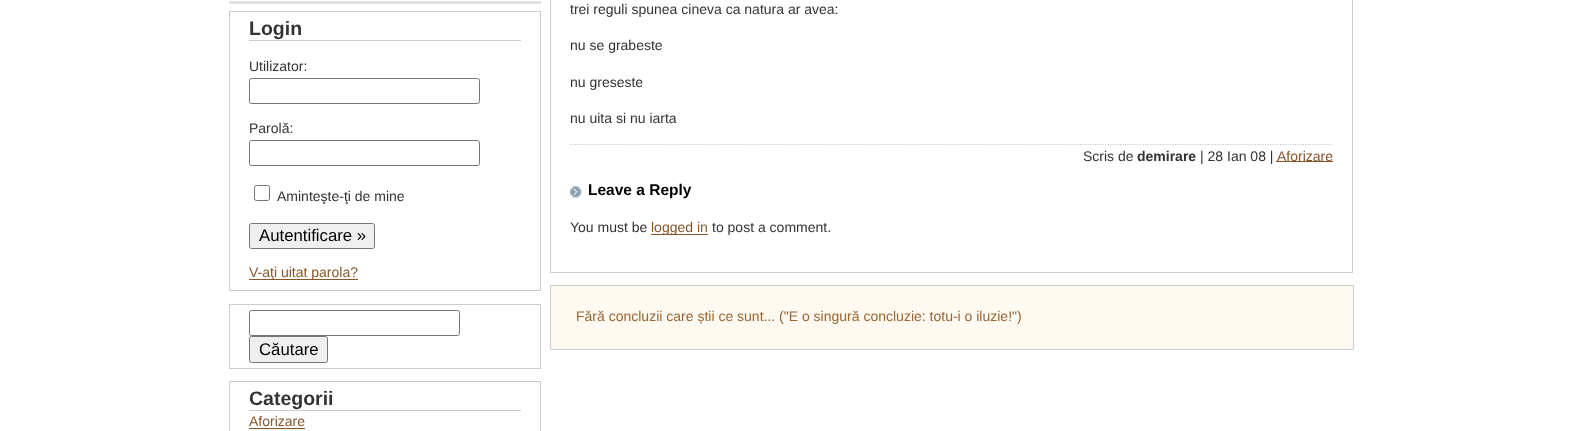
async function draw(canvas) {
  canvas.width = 1582
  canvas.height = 431
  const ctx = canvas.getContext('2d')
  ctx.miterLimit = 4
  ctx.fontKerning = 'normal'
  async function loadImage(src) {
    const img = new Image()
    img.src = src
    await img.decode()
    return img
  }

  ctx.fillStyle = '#fff'
  ctx.fillRect(0, 0, 1582, 431)
  ctx.fillStyle = '#e2e2e2'
  ctx.fillRect(229, 1, 312, 3)
  ctx.strokeStyle = '#ccc'
  ctx.strokeRect(229.5, 11.5, 311, 279)
  ctx.fillStyle = '#ccc'
  ctx.fillRect(249, 40, 272, 1)
  ctx.font = 'bold 19.5px Liberation Sans'
  ctx.fillStyle = '#333'
  ctx.fillText('Login', 249, 35)
  ctx.font = '14px Liberation Sans'
  ctx.fillText('Utilizator:', 249, 71)
  ctx.beginPath()
  ctx.roundRect(249.5, 78.5, 230, 25, 2)
  ctx.strokeStyle = '#767676'
  ctx.stroke()
  ctx.fillText('Parolă:', 249, 133)
  ctx.beginPath()
  ctx.roundRect(249.5, 140.5, 230, 25, 2)
  ctx.stroke()
  ctx.beginPath()
  ctx.roundRect(254.5, 185.5, 15, 15, 2)
  ctx.stroke()
  ctx.fillText('Aminteşte-ţi de mine', 277, 201)
  ctx.fillStyle = '#efefef'
  ctx.beginPath()
  ctx.roundRect(249.5, 223.5, 125, 25, 2)
  ctx.fill()
  ctx.stroke()
  ctx.font = '16.75px Liberation Sans'
  ctx.fillStyle = '#000'
  ctx.fillText('Autentificare »', 259, 241)
  ctx.fillStyle = '#875629'
  ctx.fillRect(249, 279, 109, 1)
  ctx.font = '14px Liberation Sans'
  ctx.fillText('V-aţi uitat parola?', 249, 277)
  ctx.strokeStyle = '#ccc'
  ctx.strokeRect(229.5, 304.5, 311, 64)
  ctx.beginPath()
  ctx.roundRect(249.5, 310.5, 210, 25, 2)
  ctx.strokeStyle = '#767676'
  ctx.stroke()
  ctx.fillStyle = '#efefef'
  ctx.beginPath()
  ctx.roundRect(249.5, 336.5, 78, 26, 2)
  ctx.fill()
  ctx.stroke()
  ctx.font = '16.75px Liberation Sans'
  ctx.fillStyle = '#000'
  ctx.fillText('Căutare', 259, 355)
  ctx.strokeStyle = '#ccc'
  ctx.strokeRect(229.5, 381.5, 311, 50)
  ctx.fillStyle = '#ccc'
  ctx.fillRect(249, 410, 272, 1)
  ctx.font = 'bold 19.5px Liberation Sans'
  ctx.fillStyle = '#333'
  ctx.fillText('Categorii', 249, 405)
  ctx.font = '14px Liberation Sans'
  ctx.fillStyle = '#875629'
  ctx.fillText('Aforizare', 249, 426)
  ctx.fillRect(249, 428, 56, 1)
  ctx.strokeRect(550.5, -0.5, 802, 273)
  ctx.fillStyle = '#333'
  ctx.fillText('trei reguli spunea cineva ca natura ar avea:', 570, 14)
  ctx.fillText('nu se grabeste', 570, 50)
  ctx.fillText('nu greseste', 570, 87)
  ctx.fillText('nu uita si nu iarta', 570, 123)
  ctx.beginPath()
  ctx.moveTo(570, 144.5)
  ctx.lineTo(1332.5, 144.5)
  ctx.lineWidth = 1.2
  ctx.setLineDash([1.25, 1.25])
  ctx.stroke()
  ctx.fillText('Scris de', 1083, 161)
  ctx.font = 'bold 14px Liberation Sans'
  ctx.fillText('demirare', 1137, 161)
  ctx.font = '14px Liberation Sans'
  ctx.fillText('| 28 Ian 08 |', 1200, 161)
  ctx.fillStyle = '#875629'
  ctx.fillRect(1276, 161, 57, 1)
  ctx.fillText('Aforizare', 1277, 161)
  ctx.drawImage(await loadImage('image0.png'), 570, 186, 12, 12)
  ctx.font = 'bold 15.5px Liberation Sans'
  ctx.fillStyle = '#000'
  ctx.fillText('Leave a Reply', 588, 195)
  ctx.font = '14px Liberation Sans'
  ctx.fillStyle = '#333'
  ctx.fillText('You must be', 570, 232)
  ctx.fillStyle = '#875629'
  ctx.fillRect(651, 234, 57, 1)
  ctx.fillText('logged in', 651, 232)
  ctx.fillStyle = '#333'
  ctx.fillText('to post a comment.', 712, 232)
  ctx.fillStyle = '#fef9f1'
  ctx.beginPath()
  ctx.rect(550.5, 285.5, 803, 64)
  ctx.fill()
  ctx.lineWidth = 1
  ctx.setLineDash([])
  ctx.stroke()
  ctx.fillStyle = '#963'
  ctx.fillText('Fără concluzii care știi ce sunt... ("E o singură concluzie: totu-i o iluzie!")', 576, 321)
}

draw(document.querySelector('canvas'))
